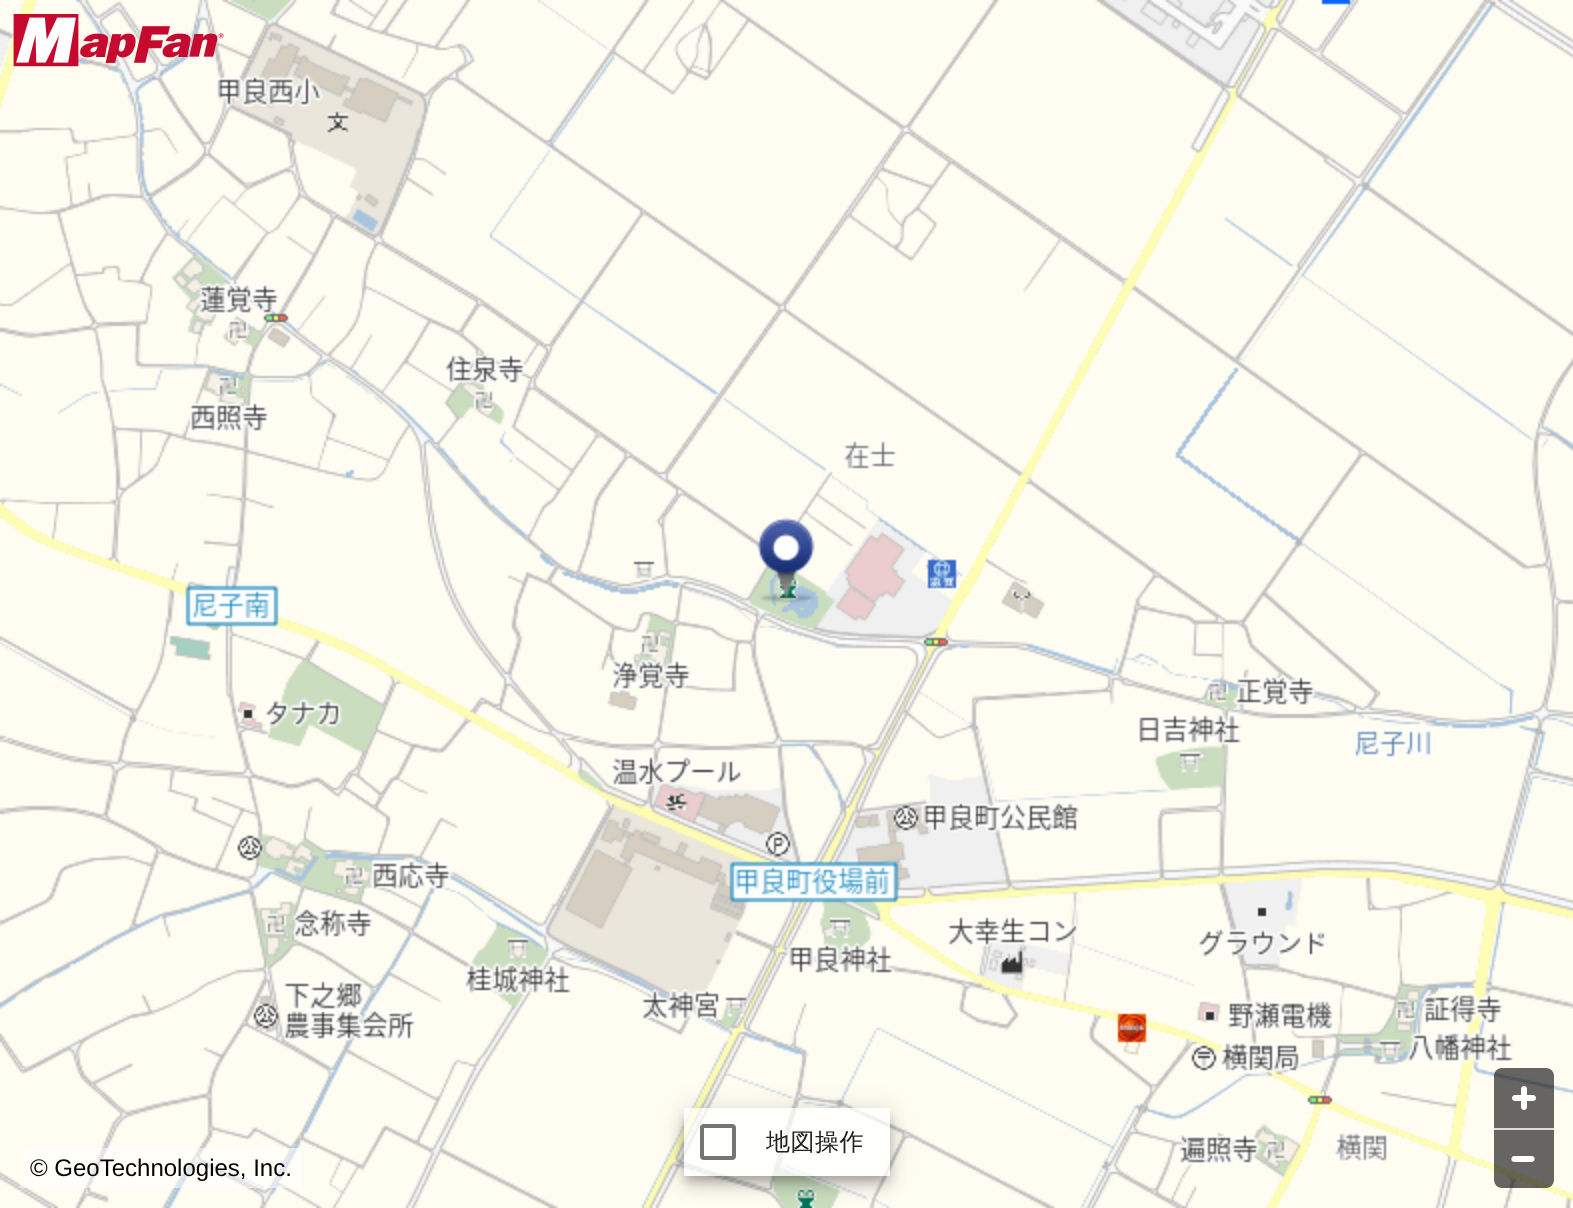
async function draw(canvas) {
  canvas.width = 1573
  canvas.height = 1208
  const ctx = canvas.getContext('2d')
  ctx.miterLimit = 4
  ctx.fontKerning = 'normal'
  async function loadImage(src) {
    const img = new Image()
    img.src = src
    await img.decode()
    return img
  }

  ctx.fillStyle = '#fff'
  ctx.fillRect(0, 0, 1573, 1208)
  ctx.drawImage(await loadImage('image1.png'), 0, 0, 1573, 1208)
  ctx.drawImage(await loadImage('image0.png'), 13, 14, 211, 53)
  ctx.save()
  ctx.beginPath()
  ctx.moveTo(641, 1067)
  ctx.lineTo(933, 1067)
  ctx.lineTo(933, 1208)
  ctx.lineTo(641, 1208)
  ctx.closePath()
  ctx.moveTo(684, 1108)
  ctx.lineTo(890, 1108)
  ctx.lineTo(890, 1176)
  ctx.lineTo(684, 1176)
  ctx.closePath()
  ctx.clip('evenodd')
  ctx.fillStyle = '#0000001f'
  ctx.filter = 'blur(14px)'
  ctx.beginPath()
  ctx.rect(684, 1110, 206, 68)
  ctx.fill()
  ctx.filter = 'none'
  ctx.restore()
  ctx.save()
  ctx.beginPath()
  ctx.moveTo(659, 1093)
  ctx.lineTo(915, 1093)
  ctx.lineTo(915, 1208)
  ctx.lineTo(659, 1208)
  ctx.closePath()
  ctx.moveTo(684, 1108)
  ctx.lineTo(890, 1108)
  ctx.lineTo(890, 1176)
  ctx.lineTo(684, 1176)
  ctx.closePath()
  ctx.clip('evenodd')
  ctx.fillStyle = '#00000024'
  ctx.filter = 'blur(8px)'
  ctx.beginPath()
  ctx.rect(684, 1118, 206, 68)
  ctx.fill()
  ctx.filter = 'none'
  ctx.restore()
  ctx.save()
  ctx.beginPath()
  ctx.moveTo(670, 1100)
  ctx.lineTo(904, 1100)
  ctx.lineTo(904, 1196)
  ctx.lineTo(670, 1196)
  ctx.closePath()
  ctx.moveTo(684, 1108)
  ctx.lineTo(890, 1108)
  ctx.lineTo(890, 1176)
  ctx.lineTo(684, 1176)
  ctx.closePath()
  ctx.clip('evenodd')
  ctx.fillStyle = '#00000033'
  ctx.filter = 'blur(5px)'
  ctx.beginPath()
  ctx.rect(686, 1116, 202, 64)
  ctx.fill()
  ctx.filter = 'none'
  ctx.restore()
  ctx.fillStyle = '#ffffffb3'
  ctx.fillRect(684, 1108, 206, 68)
  ctx.beginPath()
  ctx.roundRect(702, 1126, 32, 32, 2)
  ctx.strokeStyle = '#0000008a'
  ctx.lineWidth = 4
  ctx.stroke()
  ctx.letterSpacing = '0.5px'
  ctx.font = '500 24px WenQuanYi Zen Hei'
  ctx.fillStyle = '#212121'
  ctx.fillText('地図操作', 766, 1150)
  ctx.fillStyle = '#ffffff80'
  ctx.fillRect(20, 1148, 282, 40)
  ctx.letterSpacing = '0px'
  ctx.font = '24px Liberation Sans'
  ctx.fillStyle = '#000'
  ctx.fillText('© GeoTechnologies, Inc.', 30, 1176)
  ctx.fillStyle = '#00000099'
  ctx.beginPath()
  ctx.roundRect(1494, 1068, 60, 60, [8, 8, 0, 0])
  ctx.fill()
  ctx.drawImage(await loadImage('image2.png'), 1512, 1086, 24, 24)
  ctx.beginPath()
  ctx.roundRect(1494, 1128, 60, 60, [0, 0, 8, 8])
  ctx.fill()
  ctx.drawImage(await loadImage('image3.png'), 1511, 1156, 24, 6)
  ctx.fillStyle = '#ddd'
  ctx.fillRect(1494, 1128, 60, 2)
}

draw(document.querySelector('canvas'))
